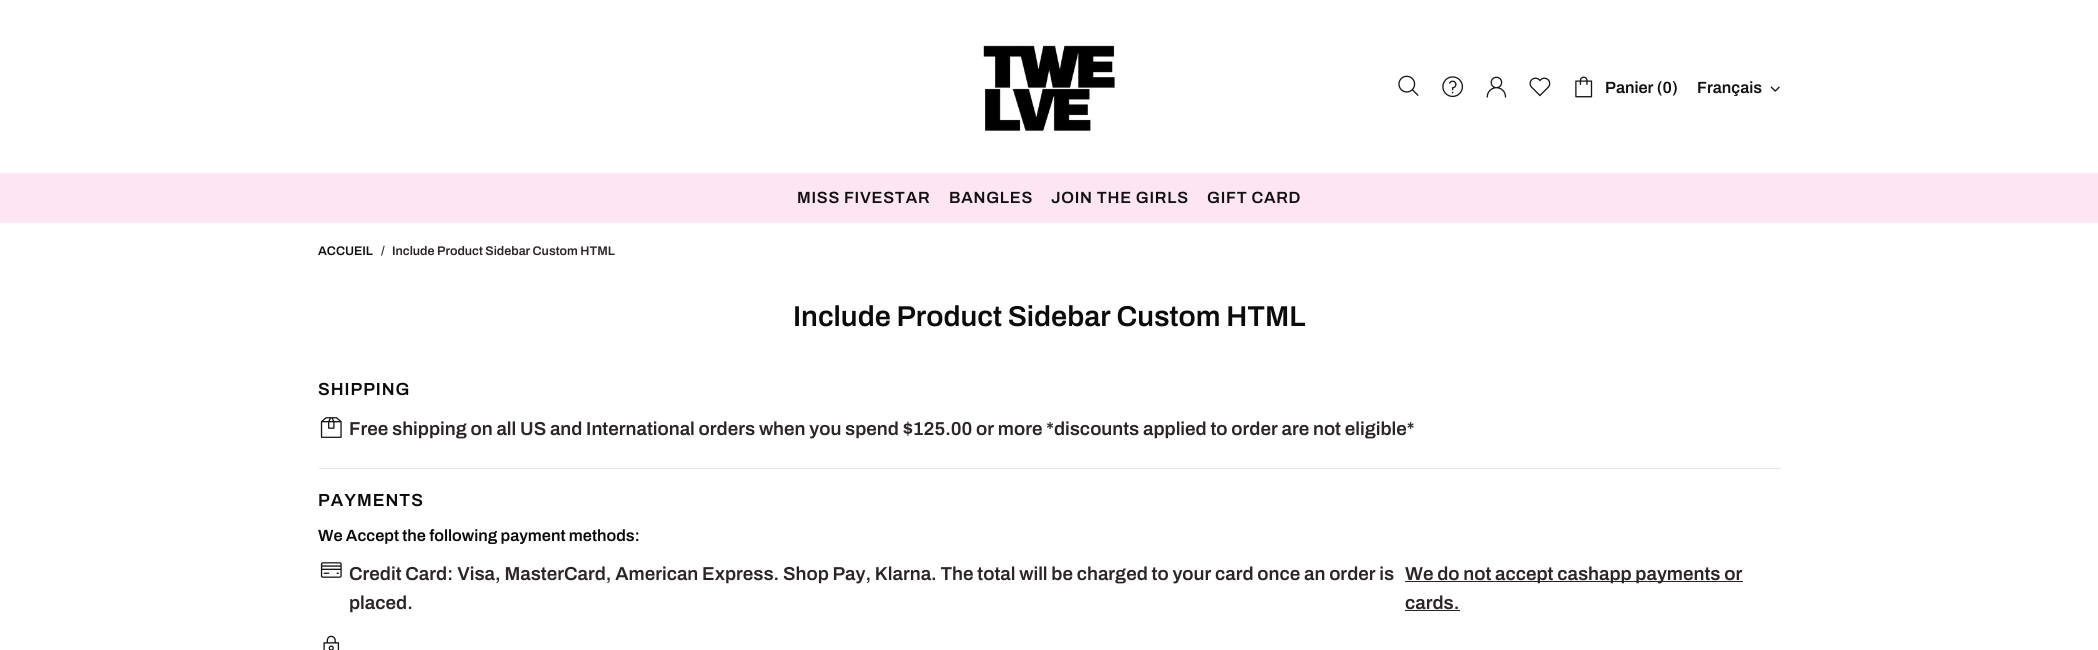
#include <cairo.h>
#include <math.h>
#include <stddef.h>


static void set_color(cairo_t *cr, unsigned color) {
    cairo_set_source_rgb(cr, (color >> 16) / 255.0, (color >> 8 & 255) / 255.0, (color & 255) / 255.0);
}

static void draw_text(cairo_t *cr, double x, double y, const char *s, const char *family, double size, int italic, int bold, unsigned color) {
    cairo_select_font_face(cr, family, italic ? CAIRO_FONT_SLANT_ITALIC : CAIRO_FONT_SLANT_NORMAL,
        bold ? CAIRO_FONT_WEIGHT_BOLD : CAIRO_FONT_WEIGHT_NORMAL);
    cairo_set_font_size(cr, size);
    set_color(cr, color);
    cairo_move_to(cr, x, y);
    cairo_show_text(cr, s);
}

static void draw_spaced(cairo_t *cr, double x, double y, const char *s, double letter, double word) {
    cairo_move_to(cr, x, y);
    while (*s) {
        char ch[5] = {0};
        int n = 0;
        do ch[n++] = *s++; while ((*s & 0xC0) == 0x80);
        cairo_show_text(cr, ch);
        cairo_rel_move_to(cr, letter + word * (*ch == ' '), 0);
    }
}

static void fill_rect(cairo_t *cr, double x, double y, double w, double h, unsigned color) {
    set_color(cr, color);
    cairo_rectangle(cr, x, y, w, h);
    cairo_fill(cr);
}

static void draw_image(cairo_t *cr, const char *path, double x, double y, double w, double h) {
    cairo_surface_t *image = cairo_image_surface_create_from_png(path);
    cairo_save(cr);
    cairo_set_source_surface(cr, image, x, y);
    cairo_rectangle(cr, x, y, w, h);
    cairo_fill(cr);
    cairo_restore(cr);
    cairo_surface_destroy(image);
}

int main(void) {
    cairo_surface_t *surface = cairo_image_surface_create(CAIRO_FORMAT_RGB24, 2098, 650);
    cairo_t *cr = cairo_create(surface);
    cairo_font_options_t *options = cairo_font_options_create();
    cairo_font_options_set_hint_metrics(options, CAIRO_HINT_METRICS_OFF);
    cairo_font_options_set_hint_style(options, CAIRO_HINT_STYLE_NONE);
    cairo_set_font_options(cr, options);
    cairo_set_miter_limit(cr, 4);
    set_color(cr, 0xFFFFFF);
    cairo_paint(cr);
    draw_image(cr, "assets/img1.png", 983, 45, 132, 86);
    draw_image(cr, "assets/img2.png", 1398, 75, 21, 21);
    draw_image(cr, "assets/img3.png", 1442, 76, 22, 22);
    draw_image(cr, "assets/img4.png", 1486, 76, 21, 22);
    draw_image(cr, "assets/img5.png", 1529, 77, 22, 20);
    draw_image(cr, "assets/img6.png", 1575, 76, 18, 22);
    draw_text(cr, 1605, 93, "Panier (0)", "Archivo SemiBold", 16.25, 0, 0, 0x111111);
    draw_text(cr, 1697, 93, "Français", "Archivo SemiBold", 16.25, 0, 0, 0x111111);
    draw_image(cr, "assets/img7.png", 1770, 86, 10, 6);
    fill_rect(cr, 0, 173, 2098, 50, 0xFDE5F4);
    set_color(cr, 0x111111);
    draw_spaced(cr, 797, 203, "MISS FIVESTAR", 0.75, 0);
    draw_spaced(cr, 949, 203, "BANGLES", 0.75, 0);
    draw_spaced(cr, 1051, 203, "JOIN THE GIRLS", 0.75, 0);
    draw_spaced(cr, 1207, 203, "GIFT CARD", 0.75, 0);
    draw_text(cr, 318, 255, "ACCUEIL", "Archivo SemiBold", 12.5, 0, 0, 0x111111);
    draw_text(cr, 381, 255, "/", "Archivo SemiBold", 12.5, 0, 0, 0x2B2529);
    draw_text(cr, 392, 255, "Include Product Sidebar Custom HTML", "Archivo SemiBold", 12.5, 0, 0, 0x2B2529);
    draw_text(cr, 793, 326, "Include Product Sidebar Custom HTML", "Archivo SemiBold", 28.75, 0, 0, 0x0B0B0B);
    cairo_set_font_size(cr, 17.5);
    draw_spaced(cr, 318, 395, "SHIPPING", 1, 0);
    draw_image(cr, "assets/img8.png", 320, 417, 22, 21);
    draw_text(cr, 349, 435, "Free shipping on all US and International orders when you spend $125.00 or more *discounts applied to order are not eligible*", "Archivo SemiBold", 18.75, 0, 0, 0x2B2529);
    fill_rect(cr, 319, 468, 1462, 1, 0xE5E5E5);
    cairo_set_font_size(cr, 17.5);
    set_color(cr, 0x0B0B0B);
    draw_spaced(cr, 318, 506, "PAYMENTS", 1, 0);
    draw_text(cr, 318, 541, "We Accept the following payment methods:", "Archivo SemiBold", 16.25, 0, 0, 0x0B0B0B);
    draw_image(cr, "assets/img9.png", 320, 562, 22, 16);
    draw_text(cr, 349, 580, "Credit Card: Visa, MasterCard, American Express. Shop Pay, Klarna. The total will be charged to your card once an order is", "Archivo SemiBold", 18.75, 0, 0, 0x2B2529);
    fill_rect(cr, 1405, 581, 338, 1, 0x2B2529);
    draw_text(cr, 1405, 580, "We do not accept cashapp payments or", "Archivo SemiBold", 18.75, 0, 0, 0x2B2529);
    draw_text(cr, 1405, 609, "cards.", "Archivo SemiBold", 18.75, 0, 0, 0x2B2529);
    fill_rect(cr, 1405, 610, 55, 1, 0x2B2529);
    draw_text(cr, 349, 609, "placed.", "Archivo SemiBold", 18.75, 0, 0, 0x2B2529);
    draw_image(cr, "assets/img10.png", 323, 635, 17, 15);
    cairo_surface_write_to_png(surface, "output.png");
    cairo_font_options_destroy(options);
    cairo_destroy(cr);
    cairo_surface_destroy(surface);
    return 0;
}
